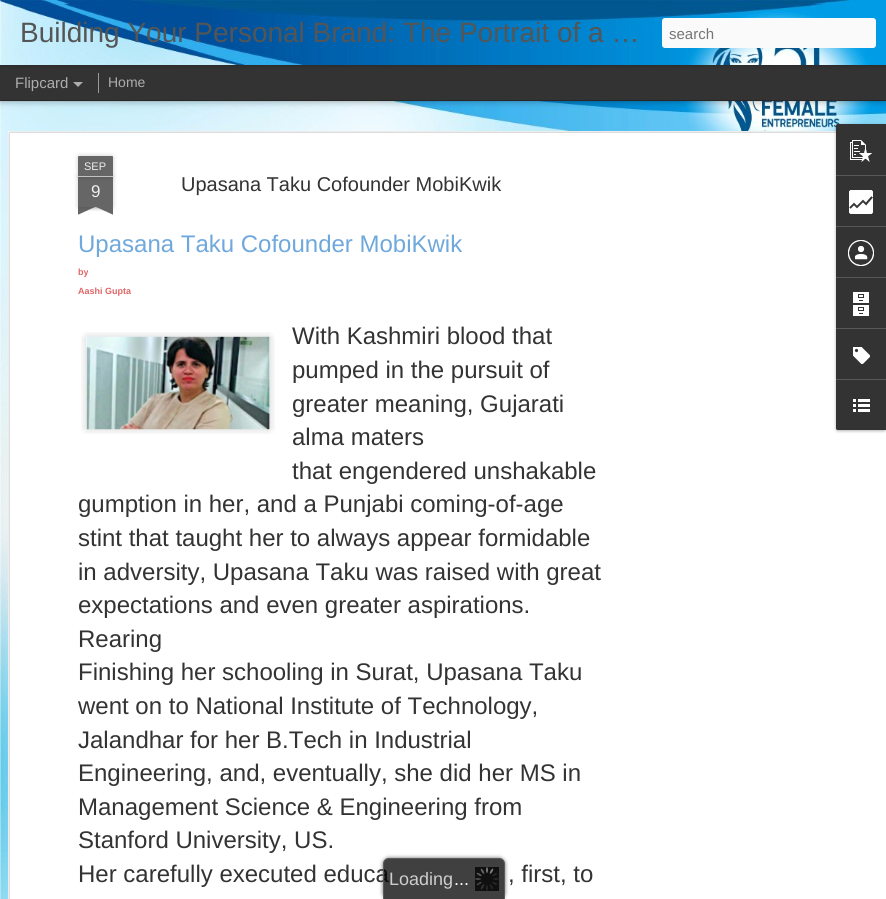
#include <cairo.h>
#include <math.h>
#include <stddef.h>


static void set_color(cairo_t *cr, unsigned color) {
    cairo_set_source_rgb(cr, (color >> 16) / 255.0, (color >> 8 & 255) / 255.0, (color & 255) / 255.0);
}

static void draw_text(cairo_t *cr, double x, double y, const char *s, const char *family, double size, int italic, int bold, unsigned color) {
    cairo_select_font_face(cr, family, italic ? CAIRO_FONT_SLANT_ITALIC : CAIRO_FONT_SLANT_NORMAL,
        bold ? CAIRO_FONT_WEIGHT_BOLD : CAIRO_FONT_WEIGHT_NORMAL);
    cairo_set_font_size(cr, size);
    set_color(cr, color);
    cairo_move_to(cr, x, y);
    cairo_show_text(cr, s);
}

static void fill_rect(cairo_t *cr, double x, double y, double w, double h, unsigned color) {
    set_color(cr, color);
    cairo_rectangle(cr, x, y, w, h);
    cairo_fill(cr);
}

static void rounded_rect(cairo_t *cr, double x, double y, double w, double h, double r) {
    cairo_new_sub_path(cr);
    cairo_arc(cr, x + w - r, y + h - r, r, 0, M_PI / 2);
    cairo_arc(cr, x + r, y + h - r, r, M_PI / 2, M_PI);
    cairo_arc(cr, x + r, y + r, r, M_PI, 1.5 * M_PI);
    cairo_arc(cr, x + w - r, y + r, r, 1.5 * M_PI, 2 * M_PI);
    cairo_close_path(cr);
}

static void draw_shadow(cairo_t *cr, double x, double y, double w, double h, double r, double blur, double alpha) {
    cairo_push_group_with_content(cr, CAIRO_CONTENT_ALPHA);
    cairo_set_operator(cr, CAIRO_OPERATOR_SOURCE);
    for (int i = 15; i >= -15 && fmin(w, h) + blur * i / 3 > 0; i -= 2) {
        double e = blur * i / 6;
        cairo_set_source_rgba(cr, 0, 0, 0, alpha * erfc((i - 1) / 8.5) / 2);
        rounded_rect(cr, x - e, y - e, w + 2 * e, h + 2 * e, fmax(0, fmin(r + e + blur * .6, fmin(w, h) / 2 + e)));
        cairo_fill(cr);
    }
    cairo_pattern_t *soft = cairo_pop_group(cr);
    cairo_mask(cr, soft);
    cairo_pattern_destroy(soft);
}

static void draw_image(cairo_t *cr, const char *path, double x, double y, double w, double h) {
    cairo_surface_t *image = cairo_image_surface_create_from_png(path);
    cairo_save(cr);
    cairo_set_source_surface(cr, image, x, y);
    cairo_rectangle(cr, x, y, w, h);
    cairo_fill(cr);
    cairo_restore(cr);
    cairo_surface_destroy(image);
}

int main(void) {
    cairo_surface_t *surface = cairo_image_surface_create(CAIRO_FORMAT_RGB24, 886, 899);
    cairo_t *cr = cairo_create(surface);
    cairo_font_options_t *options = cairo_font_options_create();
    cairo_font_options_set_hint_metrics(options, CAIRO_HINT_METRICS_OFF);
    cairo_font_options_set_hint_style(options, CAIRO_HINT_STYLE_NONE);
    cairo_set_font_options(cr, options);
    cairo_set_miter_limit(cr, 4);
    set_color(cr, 0x333333);
    cairo_paint(cr);
    draw_image(cr, "assets/img2.png", 0, 101, 886, 798);
    set_color(cr, 0x000000);
    draw_shadow(cr, 0, 65, 886, 35, 0, 4, 0.5);
    fill_rect(cr, 0, 65, 886, 35, 0x333333);
    fill_rect(cr, 98, 73, 1, 20, 0x999999);
    set_color(cr, 0x000000);
    draw_shadow(cr, 0, 0, 886, 65, 0, 2.5, 0.3);
    draw_image(cr, "assets/img1.png", 0, 0, 886, 65);
    draw_text(cr, 20, 42, "Building Your Personal Brand: The Portrait of a …", "Liberation Sans", 28, 0, 0, 0x555555);
    set_color(cr, 0xFAFAFA);
    rounded_rect(cr, 662, 18, 214, 30, 3);
    cairo_fill(cr);
    draw_text(cr, 669, 39, "search", "Liberation Sans", 15, 0, 0, 0x757575);
    draw_text(cr, 15, 88, "Flipcard", "Liberation Sans", 15, 0, 0, 0xADADAD);
    cairo_new_path(cr);
    cairo_move_to(cr, 73, 82);
    cairo_line_to(cr, 83, 82);
    cairo_line_to(cr, 78, 87);
    cairo_close_path(cr);
    cairo_fill(cr);
    draw_text(cr, 108, 87, "Home", "Liberation Sans", 14, 0, 0, 0xADADAD);
    fill_rect(cr, 8, 131, 878, 768, 0xFFFFFF);
    draw_image(cr, "assets/img3.png", 8, 131, 828, 768);
    set_color(cr, 0x000000);
    draw_shadow(cr, 78, 177, 35, 30, 0, 2.5, 0.2);
    fill_rect(cr, 78, 177, 35, 30, 0x666666);
    set_color(cr, 0x000000);
    draw_shadow(cr, 78, 156, 35, 21, 1, 2.5, 0.2);
    set_color(cr, 0x666666);
    cairo_new_path(cr);
    cairo_move_to(cr, 79, 156);
    cairo_line_to(cr, 112, 156);
    cairo_curve_to(cr, 112.5, 156, 113, 156.5, 113, 157);
    cairo_line_to(cr, 113, 177);
    cairo_line_to(cr, 78, 177);
    cairo_line_to(cr, 78, 157);
    cairo_curve_to(cr, 78, 156.5, 78.5, 156, 79, 156);
    cairo_close_path(cr);
    cairo_fill(cr);
    fill_rect(cr, 78, 176, 35, 1, 0xC2C2C2);
    draw_text(cr, 84, 170, "SEP", "Liberation Sans", 11, 0, 0, 0xEEEEEE);
    draw_text(cr, 91, 197, "9", "Liberation Sans", 17, 0, 0, 0xEEEEEE);
    cairo_save(cr);
    cairo_rectangle(cr, 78, 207, 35, 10);
    cairo_clip(cr);
    set_color(cr, 0x000000);
    draw_shadow(cr, 69, 197, 50, 10, 0, 2.5, 0.2);
    cairo_restore(cr);
    cairo_save(cr);
    cairo_rectangle(cr, 78, 207, 35, 10);
    cairo_clip(cr);
    set_color(cr, 0x666666);
    cairo_new_path(cr);
    cairo_move_to(cr, 69, 208);
    cairo_line_to(cr, 115, 187);
    cairo_line_to(cr, 119, 196);
    cairo_line_to(cr, 73, 217);
    cairo_close_path(cr);
    cairo_fill(cr);
    cairo_restore(cr);
    cairo_save(cr);
    cairo_rectangle(cr, 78, 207, 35, 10);
    cairo_clip(cr);
    set_color(cr, 0x000000);
    draw_shadow(cr, 72, 197, 50, 10, 0, 2.5, 0.2);
    cairo_restore(cr);
    cairo_save(cr);
    cairo_rectangle(cr, 78, 207, 35, 10);
    cairo_clip(cr);
    set_color(cr, 0x666666);
    cairo_new_path(cr);
    cairo_move_to(cr, 76, 187);
    cairo_line_to(cr, 122, 208);
    cairo_line_to(cr, 118, 217);
    cairo_line_to(cr, 72, 196);
    cairo_close_path(cr);
    cairo_fill(cr);
    cairo_restore(cr);
    draw_text(cr, 181, 191, "Upasana Taku Cofounder MobiKwik", "Liberation Sans", 20, 0, 0, 0x333333);
    draw_text(cr, 78, 252, "Upasana Taku Cofounder MobiKwik", "Liberation Sans", 24, 0, 0, 0x6FA8DC);
    draw_text(cr, 78, 275, "by", "Liberation Sans", 9, 0, 1, 0xE06666);
    draw_text(cr, 78, 294, "Aashi Gupta", "Liberation Sans", 9, 0, 1, 0xE06666);
    draw_image(cr, "assets/img4.png", 81, 332, 194, 102);
    draw_image(cr, "assets/img5.png", 86, 336, 185, 94);
    draw_text(cr, 292, 344, "With Kashmiri blood that", "Liberation Sans", 24, 0, 0, 0x333333);
    draw_text(cr, 292, 378, "pumped in the pursuit of", "Liberation Sans", 24, 0, 0, 0x333333);
    draw_text(cr, 292, 412, "greater meaning, Gujarati", "Liberation Sans", 24, 0, 0, 0x333333);
    draw_text(cr, 292, 445, "alma maters", "Liberation Sans", 24, 0, 0, 0x333333);
    draw_text(cr, 292, 479, "that engendered unshakable", "Liberation Sans", 24, 0, 0, 0x333333);
    draw_text(cr, 78, 512, "gumption in her, and a Punjabi coming-of-age", "Liberation Sans", 24, 0, 0, 0x333333);
    draw_text(cr, 78, 546, "stint that taught her to always appear formidable", "Liberation Sans", 24, 0, 0, 0x333333);
    draw_text(cr, 78, 580, "in adversity, Upasana Taku was raised with great", "Liberation Sans", 24, 0, 0, 0x333333);
    draw_text(cr, 78, 613, "expectations and even greater aspirations.", "Liberation Sans", 24, 0, 0, 0x333333);
    draw_text(cr, 78, 647, "Rearing", "Liberation Sans", 24, 0, 0, 0x333333);
    draw_text(cr, 78, 680, "Finishing her schooling in Surat, Upasana Taku", "Liberation Sans", 24, 0, 0, 0x333333);
    draw_text(cr, 78, 714, "went on to National Institute of Technology,", "Liberation Sans", 24, 0, 0, 0x333333);
    draw_text(cr, 78, 748, "Jalandhar for her B.Tech in Industrial", "Liberation Sans", 24, 0, 0, 0x333333);
    draw_text(cr, 78, 781, "Engineering, and, eventually, she did her MS in", "Liberation Sans", 24, 0, 0, 0x333333);
    draw_text(cr, 78, 815, "Management Science & Engineering from", "Liberation Sans", 24, 0, 0, 0x333333);
    draw_text(cr, 78, 848, "Stanford University, US.", "Liberation Sans", 24, 0, 0, 0x333333);
    draw_text(cr, 78, 882, "Her carefully executed educa", "Liberation Sans", 24, 0, 0, 0x333333);
    draw_text(cr, 508, 882, ", first, to", "Liberation Sans", 24, 0, 0, 0x333333);
    set_color(cr, 0x000000);
    draw_shadow(cr, 836, 125, 50, 306, 2, 1.5, 0.3);
    set_color(cr, 0x333333);
    cairo_new_path(cr);
    cairo_move_to(cr, 838, 124);
    cairo_line_to(cr, 886, 124);
    cairo_line_to(cr, 886, 430);
    cairo_line_to(cr, 838, 430);
    cairo_curve_to(cr, 837, 430, 836, 429, 836, 428);
    cairo_line_to(cr, 836, 126);
    cairo_curve_to(cr, 836, 125, 837, 124, 838, 124);
    cairo_close_path(cr);
    cairo_fill(cr);
    cairo_new_path(cr);
    cairo_move_to(cr, 838, 124);
    cairo_line_to(cr, 886, 124);
    cairo_line_to(cr, 886, 175);
    cairo_line_to(cr, 836, 175);
    cairo_line_to(cr, 836, 126);
    cairo_curve_to(cr, 836, 125, 837, 124, 838, 124);
    cairo_close_path(cr);
    cairo_fill(cr);
    draw_image(cr, "assets/img6.png", 850, 140, 22, 22);
    fill_rect(cr, 836, 175, 50, 1, 0x585858);
    draw_image(cr, "assets/img7.png", 849, 190, 24, 24);
    fill_rect(cr, 836, 226, 50, 1, 0x585858);
    draw_image(cr, "assets/img8.png", 848, 240, 26, 26);
    fill_rect(cr, 836, 277, 50, 1, 0x585858);
    draw_image(cr, "assets/img9.png", 853, 292, 16, 24);
    fill_rect(cr, 836, 328, 50, 1, 0x585858);
    draw_image(cr, "assets/img10.png", 853, 347, 17, 17);
    set_color(cr, 0x333333);
    cairo_new_path(cr);
    cairo_move_to(cr, 836, 379);
    cairo_line_to(cr, 886, 379);
    cairo_line_to(cr, 886, 430);
    cairo_line_to(cr, 838, 430);
    cairo_curve_to(cr, 837, 430, 836, 429, 836, 428);
    cairo_close_path(cr);
    cairo_fill(cr);
    fill_rect(cr, 836, 379, 50, 1, 0x585858);
    draw_image(cr, "assets/img11.png", 853, 399, 17, 13);
    cairo_save(cr);
    cairo_set_fill_rule(cr, CAIRO_FILL_RULE_EVEN_ODD);
    cairo_new_path(cr);
    cairo_move_to(cr, 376, 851);
    cairo_line_to(cr, 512, 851);
    cairo_line_to(cr, 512, 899);
    cairo_line_to(cr, 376, 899);
    cairo_close_path(cr);
    cairo_move_to(cr, 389, 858);
    cairo_line_to(cr, 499, 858);
    cairo_curve_to(cr, 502.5, 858, 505, 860.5, 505, 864);
    cairo_line_to(cr, 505, 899);
    cairo_line_to(cr, 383, 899);
    cairo_line_to(cr, 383, 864);
    cairo_curve_to(cr, 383, 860.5, 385.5, 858, 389, 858);
    cairo_close_path(cr);
    cairo_clip(cr);
    set_color(cr, 0x333333);
    draw_shadow(cr, 383, 858, 122, 41, 6, 2, 0.75);
    cairo_restore(cr);
    cairo_set_source_rgba(cr, 0, 0, 0, 0.75);
    cairo_new_path(cr);
    cairo_move_to(cr, 389, 858);
    cairo_line_to(cr, 499, 858);
    cairo_curve_to(cr, 502.5, 858, 505, 860.5, 505, 864);
    cairo_line_to(cr, 505, 899);
    cairo_line_to(cr, 383, 899);
    cairo_line_to(cr, 383, 864);
    cairo_curve_to(cr, 383, 860.5, 385.5, 858, 389, 858);
    cairo_close_path(cr);
    cairo_fill(cr);
    cairo_set_source_rgba(cr, 0.4, 0.4, 0.4, 0.75);
    cairo_set_fill_rule(cr, CAIRO_FILL_RULE_EVEN_ODD);
    cairo_new_path(cr);
    cairo_move_to(cr, 389, 858);
    cairo_line_to(cr, 499, 858);
    cairo_curve_to(cr, 502, 858, 505, 861, 505, 864);
    cairo_line_to(cr, 505, 899);
    cairo_line_to(cr, 383, 899);
    cairo_line_to(cr, 383, 864);
    cairo_curve_to(cr, 383, 861, 386, 858, 389, 858);
    cairo_close_path(cr);
    cairo_move_to(cr, 389, 859);
    cairo_line_to(cr, 499, 859);
    cairo_curve_to(cr, 502, 859, 504, 861, 504, 864);
    cairo_line_to(cr, 504, 899);
    cairo_line_to(cr, 384, 899);
    cairo_line_to(cr, 384, 864);
    cairo_curve_to(cr, 384, 861, 386, 859, 389, 859);
    cairo_close_path(cr);
    cairo_fill(cr);
    draw_image(cr, "assets/img12.png", 475, 867, 24, 24);
    draw_text(cr, 389, 885, "Loading", "Liberation Sans", 18, 0, 0, 0xCDCDCD);
    draw_text(cr, 454, 885, "...", "Liberation Sans", 18, 0, 0, 0xFFFFFF);
    cairo_surface_write_to_png(surface, "output.png");
    cairo_font_options_destroy(options);
    cairo_destroy(cr);
    cairo_surface_destroy(surface);
    return 0;
}
